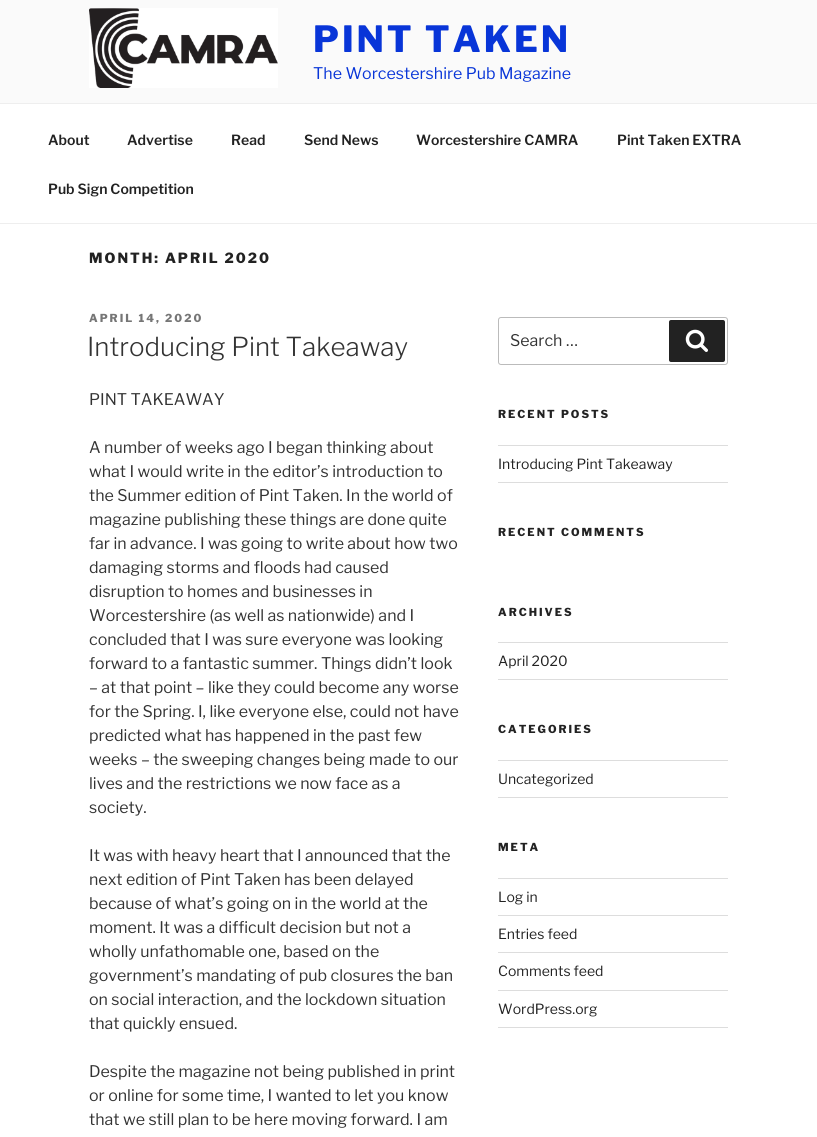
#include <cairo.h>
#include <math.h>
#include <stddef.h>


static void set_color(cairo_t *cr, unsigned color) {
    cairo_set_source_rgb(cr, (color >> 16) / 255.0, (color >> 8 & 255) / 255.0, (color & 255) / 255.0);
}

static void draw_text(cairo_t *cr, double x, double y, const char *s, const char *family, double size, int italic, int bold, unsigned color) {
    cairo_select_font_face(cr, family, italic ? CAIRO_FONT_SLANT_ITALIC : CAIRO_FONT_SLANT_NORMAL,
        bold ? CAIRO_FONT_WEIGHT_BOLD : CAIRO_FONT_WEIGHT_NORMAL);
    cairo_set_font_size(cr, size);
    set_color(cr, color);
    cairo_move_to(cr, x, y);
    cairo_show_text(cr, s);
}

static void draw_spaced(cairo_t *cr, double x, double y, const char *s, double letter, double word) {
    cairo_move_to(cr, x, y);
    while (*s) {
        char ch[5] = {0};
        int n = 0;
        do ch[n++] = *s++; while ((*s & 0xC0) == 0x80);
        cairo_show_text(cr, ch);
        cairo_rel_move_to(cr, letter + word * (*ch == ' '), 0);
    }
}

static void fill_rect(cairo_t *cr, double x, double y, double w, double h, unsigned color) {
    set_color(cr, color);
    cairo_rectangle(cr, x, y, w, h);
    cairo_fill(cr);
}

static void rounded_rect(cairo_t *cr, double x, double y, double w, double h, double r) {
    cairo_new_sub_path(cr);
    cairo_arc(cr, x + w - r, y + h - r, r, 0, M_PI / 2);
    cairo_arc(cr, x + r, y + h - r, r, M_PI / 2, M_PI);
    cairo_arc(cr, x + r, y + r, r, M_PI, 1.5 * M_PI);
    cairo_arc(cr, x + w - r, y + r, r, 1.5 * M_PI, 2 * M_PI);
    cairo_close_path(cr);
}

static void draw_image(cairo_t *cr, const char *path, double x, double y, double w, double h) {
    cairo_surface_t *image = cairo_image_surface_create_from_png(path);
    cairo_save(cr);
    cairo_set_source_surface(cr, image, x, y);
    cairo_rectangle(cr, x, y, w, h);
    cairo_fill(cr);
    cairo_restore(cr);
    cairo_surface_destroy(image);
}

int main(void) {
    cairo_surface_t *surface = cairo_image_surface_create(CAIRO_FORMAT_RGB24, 817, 1137);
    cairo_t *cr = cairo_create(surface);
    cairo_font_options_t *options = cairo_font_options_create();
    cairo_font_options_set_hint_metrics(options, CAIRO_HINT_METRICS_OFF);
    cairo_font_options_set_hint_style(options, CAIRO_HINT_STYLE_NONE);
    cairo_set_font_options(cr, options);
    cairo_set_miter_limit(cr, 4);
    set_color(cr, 0xFAFAFA);
    cairo_paint(cr);
    draw_image(cr, "assets/img1.png", 89, 8, 189, 80);
    cairo_select_font_face(cr, "Libre Franklin Thin", CAIRO_FONT_SLANT_NORMAL, CAIRO_FONT_WEIGHT_NORMAL);
    cairo_set_font_size(cr, 36);
    set_color(cr, 0x0835D8);
    draw_spaced(cr, 313, 52, "PINT TAKEN", 2.9, 0);
    draw_text(cr, 313, 79, "The Worcestershire Pub Magazine", "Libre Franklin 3 Thin", 16, 0, 0, 0x0835D8);
    fill_rect(cr, 0, 104, 817, 119, 0xFFFFFF);
    fill_rect(cr, 0, 103, 817, 1, 0xEEEEEE);
    fill_rect(cr, 0, 223, 817, 1, 0xEEEEEE);
    draw_text(cr, 48, 145, "About", "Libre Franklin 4 Thin", 14, 0, 0, 0x222222);
    draw_text(cr, 127, 145, "Advertise", "Libre Franklin 4 Thin", 14, 0, 0, 0x222222);
    draw_text(cr, 231, 145, "Read", "Libre Franklin 4 Thin", 14, 0, 0, 0x222222);
    draw_text(cr, 304, 145, "Send News", "Libre Franklin 4 Thin", 14, 0, 0, 0x222222);
    draw_text(cr, 416, 145, "Worcestershire CAMRA", "Libre Franklin 4 Thin", 14, 0, 0, 0x222222);
    draw_text(cr, 617, 145, "Pint Taken EXTRA", "Libre Franklin 4 Thin", 14, 0, 0, 0x222222);
    draw_text(cr, 48, 194, "Pub Sign Competition", "Libre Franklin 4 Thin", 14, 0, 0, 0x222222);
    fill_rect(cr, 0, 224, 817, 913, 0xFFFFFF);
    cairo_select_font_face(cr, "Libre Franklin Thin", CAIRO_FONT_SLANT_NORMAL, CAIRO_FONT_WEIGHT_NORMAL);
    set_color(cr, 0x222222);
    draw_spaced(cr, 89, 263, "MONTH: APRIL 2020", 2, 0);
    cairo_set_font_size(cr, 11);
    set_color(cr, 0x767676);
    draw_spaced(cr, 89, 322, "APRIL 14, 2020", 2, 0);
    draw_text(cr, 87, 356, "Introducing Pint Takeaway", "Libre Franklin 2 Thin", 26, 0, 0, 0x333333);
    draw_text(cr, 89, 405, "PINT TAKEAWAY", "Libre Franklin 3 Thin", 16, 0, 0, 0x333333);
    draw_text(cr, 89, 453, "A number of weeks ago I began thinking about", "Libre Franklin 3 Thin", 16, 0, 0, 0x333333);
    draw_text(cr, 89, 477, "what I would write in the editor’s introduction to", "Libre Franklin 3 Thin", 16, 0, 0, 0x333333);
    draw_text(cr, 89, 501, "the Summer edition of Pint Taken. In the world of", "Libre Franklin 3 Thin", 16, 0, 0, 0x333333);
    draw_text(cr, 89, 525, "magazine publishing these things are done quite", "Libre Franklin 3 Thin", 16, 0, 0, 0x333333);
    draw_text(cr, 89, 549, "far in advance. I was going to write about how two", "Libre Franklin 3 Thin", 16, 0, 0, 0x333333);
    draw_text(cr, 89, 573, "damaging storms and floods had caused", "Libre Franklin 3 Thin", 16, 0, 0, 0x333333);
    draw_text(cr, 89, 597, "disruption to homes and businesses in", "Libre Franklin 3 Thin", 16, 0, 0, 0x333333);
    draw_text(cr, 89, 621, "Worcestershire (as well as nationwide) and I", "Libre Franklin 3 Thin", 16, 0, 0, 0x333333);
    draw_text(cr, 89, 645, "concluded that I was sure everyone was looking", "Libre Franklin 3 Thin", 16, 0, 0, 0x333333);
    draw_text(cr, 89, 669, "forward to a fantastic summer. Things didn’t look", "Libre Franklin 3 Thin", 16, 0, 0, 0x333333);
    draw_text(cr, 89, 693, "– at that point – like they could become any worse", "Libre Franklin 3 Thin", 16, 0, 0, 0x333333);
    draw_text(cr, 89, 717, "for the Spring. I, like everyone else, could not have", "Libre Franklin 3 Thin", 16, 0, 0, 0x333333);
    draw_text(cr, 89, 741, "predicted what has happened in the past few", "Libre Franklin 3 Thin", 16, 0, 0, 0x333333);
    draw_text(cr, 89, 765, "weeks – the sweeping changes being made to our", "Libre Franklin 3 Thin", 16, 0, 0, 0x333333);
    draw_text(cr, 89, 789, "lives and the restrictions we now face as a", "Libre Franklin 3 Thin", 16, 0, 0, 0x333333);
    draw_text(cr, 89, 813, "society.", "Libre Franklin 3 Thin", 16, 0, 0, 0x333333);
    draw_text(cr, 89, 861, "It was with heavy heart that I announced that the", "Libre Franklin 3 Thin", 16, 0, 0, 0x333333);
    draw_text(cr, 89, 885, "next edition of Pint Taken has been delayed", "Libre Franklin 3 Thin", 16, 0, 0, 0x333333);
    draw_text(cr, 89, 909, "because of what’s going on in the world at the", "Libre Franklin 3 Thin", 16, 0, 0, 0x333333);
    draw_text(cr, 89, 933, "moment. It was a difficult decision but not a", "Libre Franklin 3 Thin", 16, 0, 0, 0x333333);
    draw_text(cr, 89, 957, "wholly unfathomable one, based on the", "Libre Franklin 3 Thin", 16, 0, 0, 0x333333);
    draw_text(cr, 89, 981, "government’s mandating of pub closures the ban", "Libre Franklin 3 Thin", 16, 0, 0, 0x333333);
    draw_text(cr, 89, 1005, "on social interaction, and the lockdown situation", "Libre Franklin 3 Thin", 16, 0, 0, 0x333333);
    draw_text(cr, 89, 1029, "that quickly ensued.", "Libre Franklin 3 Thin", 16, 0, 0, 0x333333);
    draw_text(cr, 89, 1077, "Despite the magazine not being published in print", "Libre Franklin 3 Thin", 16, 0, 0, 0x333333);
    draw_text(cr, 89, 1101, "or online for some time, I wanted to let you know", "Libre Franklin 3 Thin", 16, 0, 0, 0x333333);
    draw_text(cr, 89, 1125, "that we still plan to be here moving forward. I am", "Libre Franklin 3 Thin", 16, 0, 0, 0x333333);
    rounded_rect(cr, 498.5, 317.5, 229, 47, 2.5);
    set_color(cr, 0xBBBBBB);
    cairo_set_line_width(cr, 1);
    cairo_stroke(cr);
    draw_text(cr, 510, 346, "Search …", "Libre Franklin 3 Thin", 16, 0, 0, 0x333333);
    set_color(cr, 0x222222);
    rounded_rect(cr, 669, 320, 56, 42, 2);
    cairo_fill(cr);
    draw_image(cr, "assets/img2.png", 685, 329, 23, 23);
    cairo_select_font_face(cr, "Libre Franklin Thin", CAIRO_FONT_SLANT_NORMAL, CAIRO_FONT_WEIGHT_NORMAL);
    cairo_set_font_size(cr, 11);
    draw_spaced(cr, 498, 418, "RECENT POSTS", 2, 0);
    fill_rect(cr, 498, 445, 230, 1, 0xDDDDDD);
    fill_rect(cr, 498, 482, 230, 1, 0xDDDDDD);
    draw_text(cr, 498, 469, "Introducing Pint Takeaway", "Libre Franklin 3 Thin", 14, 0, 0, 0x222222);
    cairo_select_font_face(cr, "Libre Franklin Thin", CAIRO_FONT_SLANT_NORMAL, CAIRO_FONT_WEIGHT_NORMAL);
    cairo_set_font_size(cr, 11);
    draw_spaced(cr, 498, 536, "RECENT COMMENTS", 2, 0);
    draw_spaced(cr, 498, 616, "ARCHIVES", 2, 0);
    fill_rect(cr, 498, 642, 230, 1, 0xDDDDDD);
    fill_rect(cr, 498, 679, 230, 1, 0xDDDDDD);
    draw_text(cr, 498, 666, "April 2020", "Libre Franklin 3 Thin", 14, 0, 0, 0x222222);
    cairo_select_font_face(cr, "Libre Franklin Thin", CAIRO_FONT_SLANT_NORMAL, CAIRO_FONT_WEIGHT_NORMAL);
    cairo_set_font_size(cr, 11);
    draw_spaced(cr, 498, 733, "CATEGORIES", 2, 0);
    fill_rect(cr, 498, 760, 230, 1, 0xDDDDDD);
    fill_rect(cr, 498, 797, 230, 1, 0xDDDDDD);
    draw_text(cr, 498, 784, "Uncategorized", "Libre Franklin 3 Thin", 14, 0, 0, 0x222222);
    cairo_select_font_face(cr, "Libre Franklin Thin", CAIRO_FONT_SLANT_NORMAL, CAIRO_FONT_WEIGHT_NORMAL);
    cairo_set_font_size(cr, 11);
    draw_spaced(cr, 498, 851, "META", 2, 0);
    fill_rect(cr, 498, 878, 230, 1, 0xDDDDDD);
    fill_rect(cr, 498, 915, 230, 1, 0xDDDDDD);
    draw_text(cr, 498, 902, "Log in", "Libre Franklin 3 Thin", 14, 0, 0, 0x222222);
    fill_rect(cr, 498, 952, 230, 1, 0xDDDDDD);
    draw_text(cr, 498, 939, "Entries feed", "Libre Franklin 3 Thin", 14, 0, 0, 0x222222);
    fill_rect(cr, 498, 990, 230, 1, 0xDDDDDD);
    draw_text(cr, 498, 976, "Comments feed", "Libre Franklin 3 Thin", 14, 0, 0, 0x222222);
    fill_rect(cr, 498, 1027, 230, 1, 0xDDDDDD);
    draw_text(cr, 498, 1014, "WordPress.org", "Libre Franklin 3 Thin", 14, 0, 0, 0x222222);
    cairo_surface_write_to_png(surface, "output.png");
    cairo_font_options_destroy(options);
    cairo_destroy(cr);
    cairo_surface_destroy(surface);
    return 0;
}
